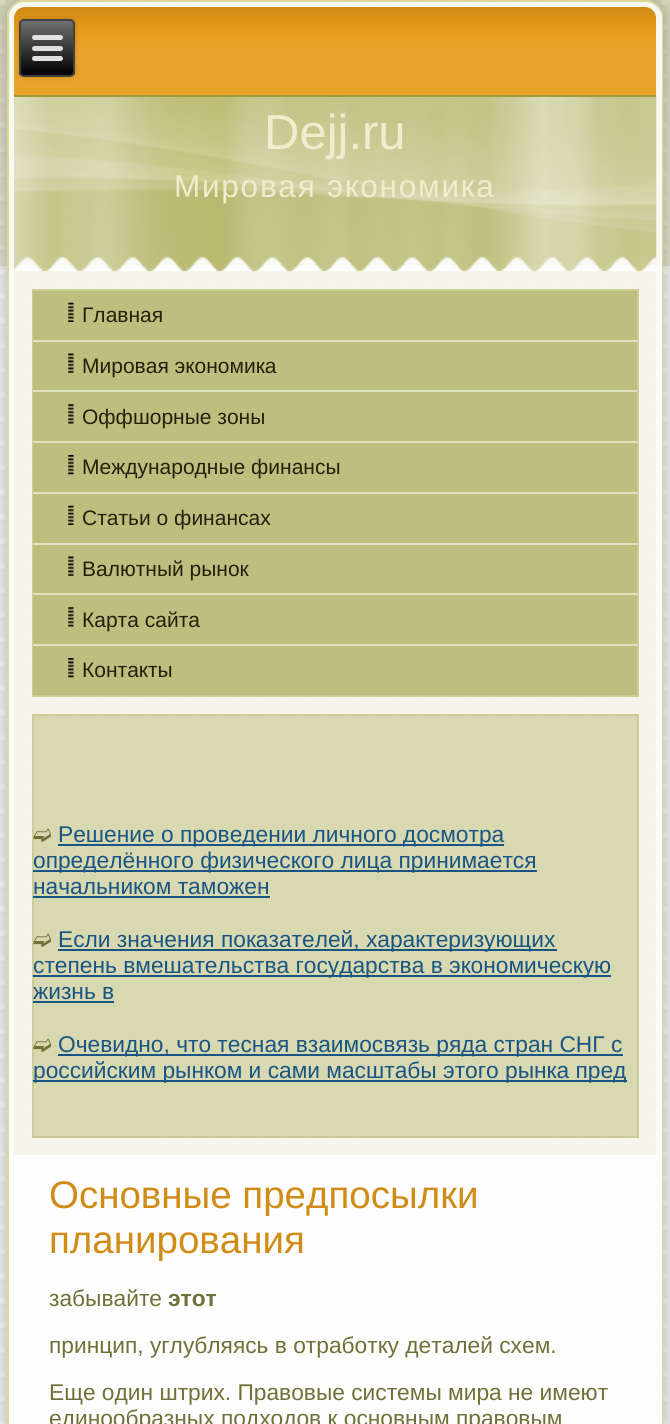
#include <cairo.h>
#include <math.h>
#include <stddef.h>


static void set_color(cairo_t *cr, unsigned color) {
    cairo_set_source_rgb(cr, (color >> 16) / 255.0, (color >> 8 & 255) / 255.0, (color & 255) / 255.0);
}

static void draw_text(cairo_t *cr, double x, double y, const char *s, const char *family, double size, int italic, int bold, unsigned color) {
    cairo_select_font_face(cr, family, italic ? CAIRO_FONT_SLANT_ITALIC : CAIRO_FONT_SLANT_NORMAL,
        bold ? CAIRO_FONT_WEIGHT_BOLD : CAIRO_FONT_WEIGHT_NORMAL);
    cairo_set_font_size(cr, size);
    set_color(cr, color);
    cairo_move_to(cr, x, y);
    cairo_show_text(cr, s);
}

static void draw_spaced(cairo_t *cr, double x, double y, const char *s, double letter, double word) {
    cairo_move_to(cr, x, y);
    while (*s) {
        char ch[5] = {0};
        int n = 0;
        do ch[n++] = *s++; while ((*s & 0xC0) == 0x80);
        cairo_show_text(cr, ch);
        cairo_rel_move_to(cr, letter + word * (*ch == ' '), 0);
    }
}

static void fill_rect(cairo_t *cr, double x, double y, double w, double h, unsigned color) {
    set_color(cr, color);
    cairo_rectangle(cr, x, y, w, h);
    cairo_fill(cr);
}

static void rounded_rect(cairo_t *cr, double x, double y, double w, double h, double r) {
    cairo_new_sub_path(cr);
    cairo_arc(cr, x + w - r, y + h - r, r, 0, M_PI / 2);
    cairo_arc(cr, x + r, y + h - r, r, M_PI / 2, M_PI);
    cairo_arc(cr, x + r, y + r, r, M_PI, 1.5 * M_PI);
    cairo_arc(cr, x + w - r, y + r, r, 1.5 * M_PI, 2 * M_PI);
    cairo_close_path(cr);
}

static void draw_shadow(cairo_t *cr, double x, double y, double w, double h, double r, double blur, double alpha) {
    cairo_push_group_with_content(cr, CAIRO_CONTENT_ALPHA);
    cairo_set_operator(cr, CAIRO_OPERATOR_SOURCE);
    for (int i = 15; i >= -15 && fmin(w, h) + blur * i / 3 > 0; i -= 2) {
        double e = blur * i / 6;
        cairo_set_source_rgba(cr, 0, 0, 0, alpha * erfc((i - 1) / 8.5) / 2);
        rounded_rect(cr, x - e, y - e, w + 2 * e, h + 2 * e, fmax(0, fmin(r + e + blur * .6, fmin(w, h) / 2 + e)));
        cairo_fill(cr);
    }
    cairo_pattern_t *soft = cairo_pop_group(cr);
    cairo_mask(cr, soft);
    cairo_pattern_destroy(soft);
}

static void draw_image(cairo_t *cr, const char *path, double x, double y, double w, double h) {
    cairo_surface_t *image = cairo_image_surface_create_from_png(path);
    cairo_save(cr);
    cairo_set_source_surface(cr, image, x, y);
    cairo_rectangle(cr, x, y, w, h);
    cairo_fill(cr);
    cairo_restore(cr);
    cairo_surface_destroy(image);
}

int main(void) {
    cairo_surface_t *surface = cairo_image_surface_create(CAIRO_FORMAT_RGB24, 670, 1424);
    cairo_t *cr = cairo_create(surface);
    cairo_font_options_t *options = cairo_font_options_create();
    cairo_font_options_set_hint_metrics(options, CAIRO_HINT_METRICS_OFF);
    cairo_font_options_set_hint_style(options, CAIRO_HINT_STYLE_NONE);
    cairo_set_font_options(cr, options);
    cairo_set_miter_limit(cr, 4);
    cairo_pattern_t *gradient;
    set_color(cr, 0xFFFFFF);
    cairo_paint(cr);
    draw_image(cr, "assets/img1.png", 0, 0, 670, 1424);
    cairo_save(cr);
    cairo_set_fill_rule(cr, CAIRO_FILL_RULE_EVEN_ODD);
    cairo_new_path(cr);
    cairo_move_to(cr, 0, 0);
    cairo_line_to(cr, 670, 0);
    cairo_line_to(cr, 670, 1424);
    cairo_line_to(cr, 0, 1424);
    cairo_close_path(cr);
    cairo_move_to(cr, 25, 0);
    cairo_line_to(cr, 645, 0);
    cairo_curve_to(cr, 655, 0, 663, 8, 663, 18);
    cairo_line_to(cr, 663, 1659);
    cairo_line_to(cr, 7, 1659);
    cairo_line_to(cr, 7, 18);
    cairo_curve_to(cr, 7, 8, 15, 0, 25, 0);
    cairo_close_path(cr);
    cairo_clip(cr);
    set_color(cr, 0x000000);
    draw_shadow(cr, 0, -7, 670, 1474, 25, 6, 0.16);
    cairo_restore(cr);
    cairo_set_source_rgba(cr, 1, 1, 1, 0.8);
    cairo_new_path(cr);
    cairo_move_to(cr, 25, 0);
    cairo_line_to(cr, 645, 0);
    cairo_curve_to(cr, 655, 0, 663, 8, 663, 18);
    cairo_line_to(cr, 663, 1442);
    cairo_line_to(cr, 7, 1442);
    cairo_line_to(cr, 7, 18);
    cairo_curve_to(cr, 7, 8, 15, 0, 25, 0);
    cairo_close_path(cr);
    cairo_fill(cr);
    cairo_set_source_rgba(cr, 0.82, 0.808, 0.482, 0.8);
    cairo_set_fill_rule(cr, CAIRO_FILL_RULE_EVEN_ODD);
    cairo_new_path(cr);
    cairo_move_to(cr, 24, 0);
    cairo_line_to(cr, 646, 0);
    cairo_curve_to(cr, 655, 0, 663, 8, 663, 18);
    cairo_line_to(cr, 663, 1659);
    cairo_line_to(cr, 7, 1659);
    cairo_line_to(cr, 7, 18);
    cairo_curve_to(cr, 7, 8, 15, 0, 24, 0);
    cairo_close_path(cr);
    cairo_move_to(cr, 24, 2);
    cairo_line_to(cr, 646, 2);
    cairo_curve_to(cr, 654, 2, 662, 9, 662, 18);
    cairo_line_to(cr, 662, 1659);
    cairo_line_to(cr, 9, 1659);
    cairo_line_to(cr, 9, 18);
    cairo_curve_to(cr, 9, 9, 16, 2, 24, 2);
    cairo_close_path(cr);
    cairo_fill(cr);
    gradient = cairo_pattern_create_linear(335, 7, 335, 96);
    cairo_pattern_add_color_stop_rgba(gradient, 0, 0.816, 0.549, 0.086, 1);
    cairo_pattern_add_color_stop_rgba(gradient, 0.25, 0.906, 0.608, 0.094, 1);
    cairo_pattern_add_color_stop_rgba(gradient, 0.4, 0.91, 0.631, 0.149, 1);
    cairo_pattern_add_color_stop_rgba(gradient, 0.5, 0.914, 0.639, 0.169, 1);
    cairo_pattern_add_color_stop_rgba(gradient, 1, 0.914, 0.639, 0.169, 1);
    cairo_set_source(cr, gradient);
    cairo_pattern_destroy(gradient);
    cairo_new_path(cr);
    cairo_move_to(cr, 25, 7);
    cairo_line_to(cr, 645, 7);
    cairo_curve_to(cr, 651, 7, 656, 12, 656, 18);
    cairo_line_to(cr, 656, 96);
    cairo_line_to(cr, 14, 96);
    cairo_line_to(cr, 14, 18);
    cairo_curve_to(cr, 14, 12, 19, 7, 25, 7);
    cairo_close_path(cr);
    cairo_fill(cr);
    draw_image(cr, "assets/img2.png", 14, 96, 643, 176);
    fill_rect(cr, 14, 95, 642, 2, 0x9F9B38);
    set_color(cr, 0x000000);
    draw_shadow(cr, 19, 19, 56, 58, 5, 2.5, 0.2);
    cairo_save(cr);
    cairo_set_fill_rule(cr, CAIRO_FILL_RULE_WINDING);
    rounded_rect(cr, 19, 19, 56, 58, 5);
    cairo_clip(cr);
    gradient = cairo_pattern_create_linear(47, 21, 47, 75);
    cairo_pattern_add_color_stop_rgba(gradient, 0, 0.439, 0.439, 0.439, 1);
    cairo_pattern_add_color_stop_rgba(gradient, 1, 0, 0, 0, 1);
    cairo_set_source(cr, gradient);
    cairo_pattern_destroy(gradient);
    cairo_rectangle(cr, 19, 21, 56, 54);
    cairo_fill(cr);
    cairo_restore(cr);
    rounded_rect(cr, 20, 20, 54, 56, 4);
    set_color(cr, 0x404040);
    cairo_stroke(cr);
    set_color(cr, 0xE0E0E0);
    rounded_rect(cr, 32, 35, 31, 5, 2.5);
    cairo_fill(cr);
    rounded_rect(cr, 32, 46, 31, 5, 2.5);
    cairo_fill(cr);
    rounded_rect(cr, 32, 56, 31, 5, 2.5);
    cairo_fill(cr);
    draw_text(cr, 264, 149, "Dejj.ru", "Liberation Sans", 49, 0, 0, 0xEEEDCE);
    cairo_set_font_size(cr, 31.5);
    draw_spaced(cr, 174, 197, "Мировая экономика", 1.75, 0);
    cairo_set_source_rgba(cr, 0.941, 0.941, 0.878, 0.6);
    cairo_rectangle(cr, 14, 271, 642, 884);
    cairo_fill(cr);
    cairo_rectangle(cr, 33, 290, 605, 406);
    set_color(cr, 0xCCCC99);
    cairo_stroke(cr);
    fill_rect(cr, 33, 291, 604, 49, 0xBEBE7E);
    draw_image(cr, "assets/img3.png", 68, 302, 6, 20);
    draw_text(cr, 82, 322, "Главная", "Liberation Sans", 21, 0, 0, 0x22210C);
    fill_rect(cr, 33, 340, 604, 2, 0xE0E0C2);
    fill_rect(cr, 33, 342, 604, 48, 0xBEBE7E);
    draw_image(cr, "assets/img4.png", 68, 353, 6, 20);
    draw_text(cr, 82, 373, "Мировая экономика", "Liberation Sans", 21, 0, 0, 0x22210C);
    fill_rect(cr, 33, 390, 604, 2, 0xE0E0C2);
    fill_rect(cr, 33, 392, 604, 49, 0xBEBE7E);
    draw_image(cr, "assets/img5.png", 68, 404, 6, 20);
    draw_text(cr, 82, 424, "Оффшорные зоны", "Liberation Sans", 21, 0, 0, 0x22210C);
    fill_rect(cr, 33, 441, 604, 2, 0xE0E0C2);
    fill_rect(cr, 33, 443, 604, 49, 0xBEBE7E);
    draw_image(cr, "assets/img6.png", 68, 455, 6, 20);
    draw_text(cr, 82, 474, "Международные финансы", "Liberation Sans", 21, 0, 0, 0x22210C);
    fill_rect(cr, 33, 492, 604, 2, 0xE0E0C2);
    fill_rect(cr, 33, 494, 604, 49, 0xBEBE7E);
    draw_image(cr, "assets/img3.png", 68, 505, 6, 20);
    draw_text(cr, 82, 525, "Статьи о финансах", "Liberation Sans", 21, 0, 0, 0x22210C);
    fill_rect(cr, 33, 543, 604, 2, 0xE0E0C2);
    fill_rect(cr, 33, 545, 604, 48, 0xBEBE7E);
    draw_image(cr, "assets/img4.png", 68, 556, 6, 20);
    draw_text(cr, 82, 576, "Валютный рынок", "Liberation Sans", 21, 0, 0, 0x22210C);
    fill_rect(cr, 33, 593, 604, 2, 0xE0E0C2);
    fill_rect(cr, 33, 595, 604, 49, 0xBEBE7E);
    draw_image(cr, "assets/img5.png", 68, 607, 6, 20);
    draw_text(cr, 82, 627, "Карта сайта", "Liberation Sans", 21, 0, 0, 0x22210C);
    fill_rect(cr, 33, 644, 604, 2, 0xE0E0C2);
    fill_rect(cr, 33, 646, 604, 49, 0xBEBE7E);
    draw_image(cr, "assets/img6.png", 68, 658, 6, 20);
    draw_text(cr, 82, 677, "Контакты", "Liberation Sans", 21, 0, 0, 0x22210C);
    set_color(cr, 0xD8D8B1);
    cairo_rectangle(cr, 33, 715, 605, 422);
    cairo_fill_preserve(cr);
    set_color(cr, 0xCCCC99);
    cairo_stroke(cr);
    draw_text(cr, 33, 842, "➫", "DejaVu Sans", 22.75, 0, 0, 0x707038);
    fill_rect(cr, 58, 844, 446, 2, 0x185584);
    draw_text(cr, 58, 842, "Решение о проведении личного досмотра", "Liberation Sans", 22.75, 0, 0, 0x185584);
    fill_rect(cr, 33, 870, 504, 2, 0x185584);
    draw_text(cr, 33, 868, "определённого физического лица принимается", "Liberation Sans", 22.75, 0, 0, 0x185584);
    draw_text(cr, 33, 894, "начальником таможен", "Liberation Sans", 22.75, 0, 0, 0x185584);
    fill_rect(cr, 33, 896, 237, 2, 0x185584);
    draw_text(cr, 33, 947, "➫", "DejaVu Sans", 22.75, 0, 0, 0x707038);
    fill_rect(cr, 58, 949, 499, 2, 0x185584);
    draw_text(cr, 58, 947, "Если значения показателей, характеризующих", "Liberation Sans", 22.75, 0, 0, 0x185584);
    fill_rect(cr, 33, 975, 578, 2, 0x185584);
    draw_text(cr, 33, 973, "степень вмешательства государства в экономическую", "Liberation Sans", 22.75, 0, 0, 0x185584);
    draw_text(cr, 33, 999, "жизнь в", "Liberation Sans", 22.75, 0, 0, 0x185584);
    fill_rect(cr, 33, 1001, 81, 2, 0x185584);
    draw_text(cr, 33, 1052, "➫", "DejaVu Sans", 22.75, 0, 0, 0x707038);
    fill_rect(cr, 58, 1054, 565, 2, 0x185584);
    draw_text(cr, 58, 1052, "Очевидно, что тесная взаимосвязь ряда стран СНГ с", "Liberation Sans", 22.75, 0, 0, 0x185584);
    fill_rect(cr, 33, 1080, 594, 2, 0x185584);
    draw_text(cr, 33, 1078, "российским рынком и сами масштабы этого рынка пред", "Liberation Sans", 22.75, 0, 0, 0x185584);
    draw_text(cr, 49, 1208, "Основные предпосылки", "Liberation Sans", 38.5, 0, 0, 0xD08C16);
    draw_text(cr, 49, 1253, "планирования", "Liberation Sans", 38.5, 0, 0, 0xD08C16);
    draw_text(cr, 49, 1306, "забывайте", "Liberation Sans", 22.75, 0, 0, 0x707038);
    draw_text(cr, 168, 1306, "этот", "Liberation Sans", 22.75, 0, 1, 0x707038);
    draw_text(cr, 49, 1353, "принцип, углубляясь в отработку деталей схем.", "Liberation Sans", 22.75, 0, 0, 0x707038);
    draw_text(cr, 49, 1400, "Еще один штрих. Правовые системы мира не имеют", "Liberation Sans", 22.75, 0, 0, 0x707038);
    draw_text(cr, 49, 1426, "единообразных подходов к основным правовым", "Liberation Sans", 22.75, 0, 0, 0x707038);
    cairo_surface_write_to_png(surface, "output.png");
    cairo_font_options_destroy(options);
    cairo_destroy(cr);
    cairo_surface_destroy(surface);
    return 0;
}
